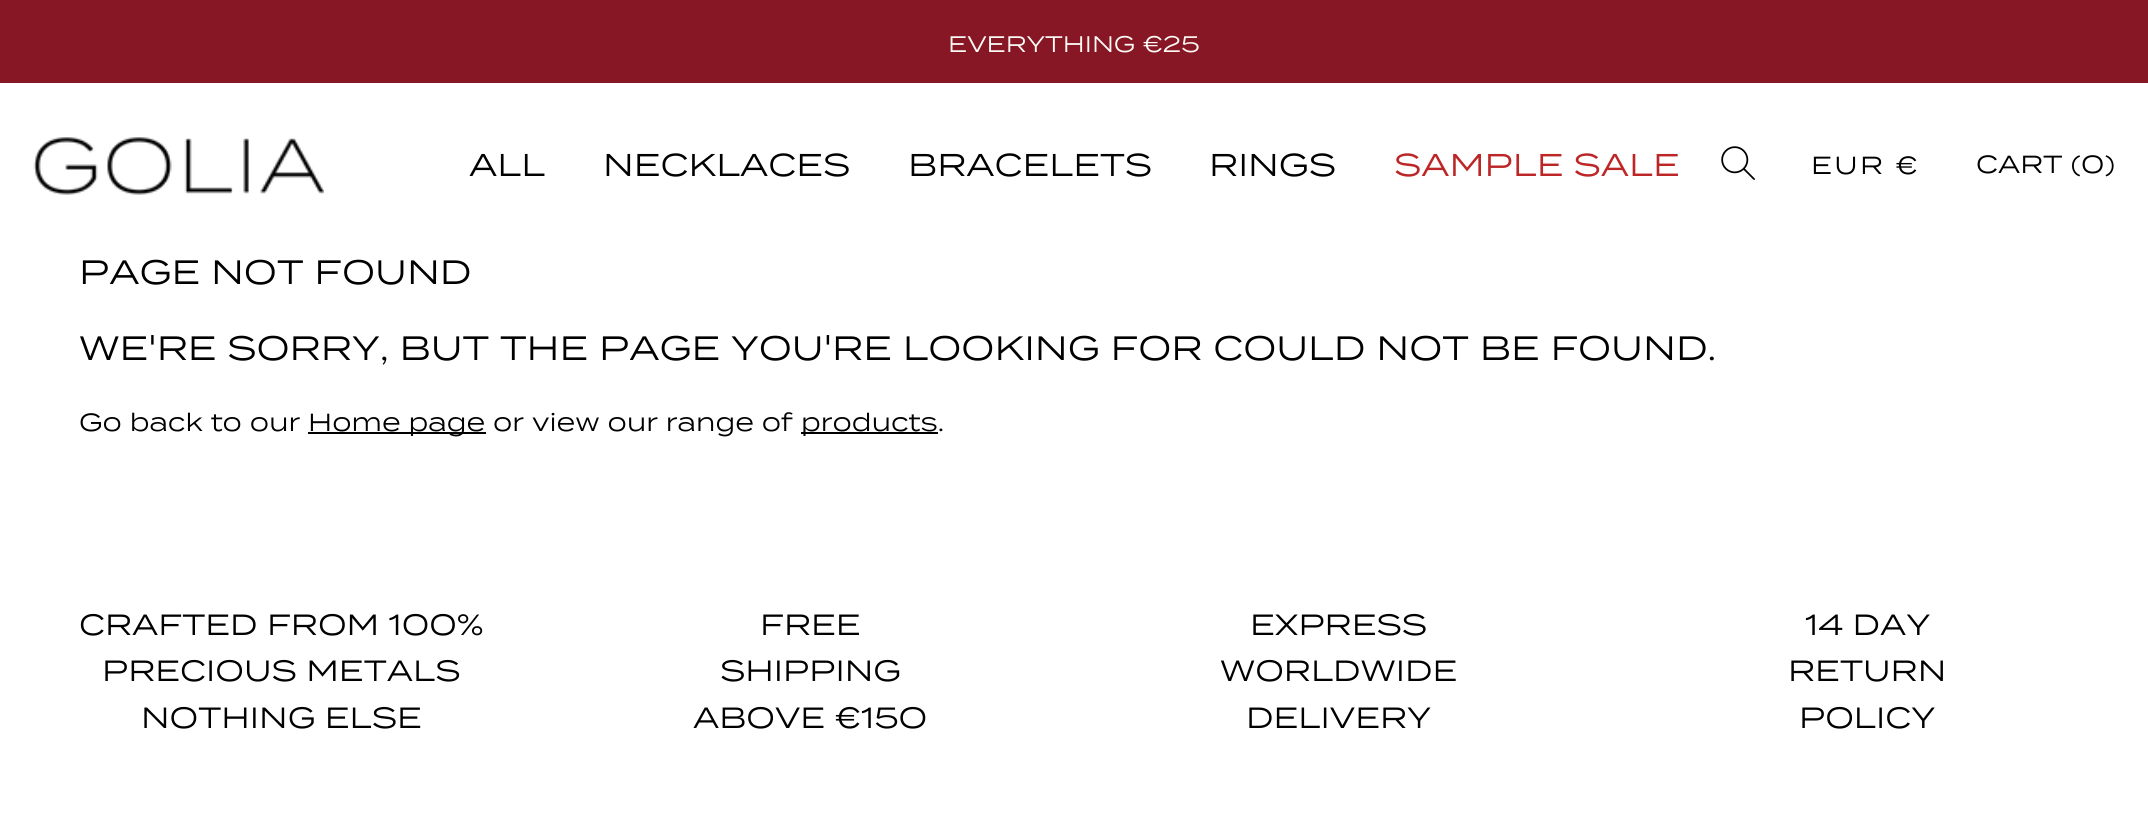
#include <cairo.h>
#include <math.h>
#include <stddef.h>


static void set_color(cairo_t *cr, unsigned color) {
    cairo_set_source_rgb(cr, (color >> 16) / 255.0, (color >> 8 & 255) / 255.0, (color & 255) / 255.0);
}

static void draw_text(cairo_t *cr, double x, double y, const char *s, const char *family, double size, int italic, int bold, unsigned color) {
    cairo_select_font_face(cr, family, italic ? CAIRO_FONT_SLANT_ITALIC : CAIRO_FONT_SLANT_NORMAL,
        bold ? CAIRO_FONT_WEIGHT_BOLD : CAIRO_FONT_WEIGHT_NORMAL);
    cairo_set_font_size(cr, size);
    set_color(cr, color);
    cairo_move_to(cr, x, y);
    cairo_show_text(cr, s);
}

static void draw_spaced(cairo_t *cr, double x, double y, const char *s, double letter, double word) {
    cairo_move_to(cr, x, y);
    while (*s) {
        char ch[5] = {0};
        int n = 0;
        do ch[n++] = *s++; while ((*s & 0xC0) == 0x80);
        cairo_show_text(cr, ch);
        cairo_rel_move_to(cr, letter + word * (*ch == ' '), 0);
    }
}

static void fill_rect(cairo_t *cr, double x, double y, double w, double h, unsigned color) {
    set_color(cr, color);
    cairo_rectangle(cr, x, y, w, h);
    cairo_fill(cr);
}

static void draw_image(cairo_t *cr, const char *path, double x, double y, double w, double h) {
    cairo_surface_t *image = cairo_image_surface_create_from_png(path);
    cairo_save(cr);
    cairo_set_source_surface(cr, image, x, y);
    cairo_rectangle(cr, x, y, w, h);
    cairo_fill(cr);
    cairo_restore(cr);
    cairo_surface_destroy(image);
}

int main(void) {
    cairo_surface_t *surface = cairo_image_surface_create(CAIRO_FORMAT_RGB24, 2148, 835);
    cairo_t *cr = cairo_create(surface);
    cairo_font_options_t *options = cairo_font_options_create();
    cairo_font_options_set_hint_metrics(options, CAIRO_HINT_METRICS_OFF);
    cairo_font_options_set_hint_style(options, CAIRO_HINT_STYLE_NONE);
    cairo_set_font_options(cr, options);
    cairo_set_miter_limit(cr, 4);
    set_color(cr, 0xFFFFFF);
    cairo_paint(cr);
    fill_rect(cr, 0, 0, 2148, 83, 0x871725);
    draw_text(cr, 948, 52, "EVERYTHING €25", "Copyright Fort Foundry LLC", 22.5, 0, 0, 0xFDFBF6);
    draw_image(cr, "assets/img1.png", 33, 137, 291, 58);
    draw_text(cr, 469, 176, "ALL", "Copyright Fort Foundry LLC", 31.5, 0, 0, 0x000000);
    draw_text(cr, 603, 176, "NECKLACES", "Copyright Fort Foundry LLC", 31.5, 0, 0, 0x000000);
    draw_text(cr, 908, 176, "BRACELETS", "Copyright Fort Foundry LLC", 31.5, 0, 0, 0x000000);
    draw_text(cr, 1209, 176, "RINGS", "Copyright Fort Foundry LLC", 31.5, 0, 0, 0x000000);
    draw_text(cr, 1394, 176, "SAMPLE SALE", "Copyright Fort Foundry LLC", 31.5, 0, 0, 0xBD2626);
    draw_image(cr, "assets/img2.png", 1721, 146, 34, 34);
    cairo_set_font_size(cr, 24.75);
    set_color(cr, 0x000000);
    draw_spaced(cr, 1811, 174, "EUR €", 2.25, 0);
    draw_text(cr, 1976, 173, "CART (0)", "Copyright Fort Foundry LLC", 24.75, 0, 0, 0x000000);
    draw_text(cr, 79, 284, "PAGE NOT FOUND", "Copyright Fort Foundry LLC", 33.75, 0, 0, 0x000000);
    draw_text(cr, 79, 360, "WE'RE SORRY, BUT THE PAGE YOU'RE LOOKING FOR COULD NOT BE FOUND.", "Copyright Fort Foundry LLC", 33.75, 0, 0, 0x000000);
    draw_text(cr, 79, 431, "Go back to our", "Copyright Fort Foundry LLC", 24.75, 0, 0, 0x000000);
    fill_rect(cr, 308, 432, 178, 2, 0x000000);
    draw_text(cr, 308, 431, "Home page or view our range of", "Copyright Fort Foundry LLC", 24.75, 0, 0, 0x000000);
    fill_rect(cr, 801, 432, 137, 2, 0x000000);
    draw_text(cr, 801, 431, "products.", "Copyright Fort Foundry LLC", 24.75, 0, 0, 0x000000);
    draw_text(cr, 79, 635, "CRAFTED FROM 100%", "Copyright Fort Foundry LLC", 29.25, 0, 0, 0x000000);
    draw_text(cr, 102, 681, "PRECIOUS METALS", "Copyright Fort Foundry LLC", 29.25, 0, 0, 0x000000);
    draw_text(cr, 141, 728, "NOTHING ELSE", "Copyright Fort Foundry LLC", 29.25, 0, 0, 0x000000);
    draw_text(cr, 760, 635, "FREE", "Copyright Fort Foundry LLC", 29.25, 0, 0, 0x000000);
    draw_text(cr, 720, 681, "SHIPPING", "Copyright Fort Foundry LLC", 29.25, 0, 0, 0x000000);
    draw_text(cr, 693, 728, "ABOVE €15O", "Copyright Fort Foundry LLC", 29.25, 0, 0, 0x000000);
    draw_text(cr, 1250, 635, "EXPRESS", "Copyright Fort Foundry LLC", 29.25, 0, 0, 0x000000);
    draw_text(cr, 1220, 681, "WORLDWIDE", "Copyright Fort Foundry LLC", 29.25, 0, 0, 0x000000);
    draw_text(cr, 1246, 728, "DELIVERY", "Copyright Fort Foundry LLC", 29.25, 0, 0, 0x000000);
    draw_text(cr, 1805, 635, "14 DAY", "Copyright Fort Foundry LLC", 29.25, 0, 0, 0x000000);
    draw_text(cr, 1788, 681, "RETURN", "Copyright Fort Foundry LLC", 29.25, 0, 0, 0x000000);
    draw_text(cr, 1799, 728, "POLICY", "Copyright Fort Foundry LLC", 29.25, 0, 0, 0x000000);
    cairo_surface_write_to_png(surface, "output.png");
    cairo_font_options_destroy(options);
    cairo_destroy(cr);
    cairo_surface_destroy(surface);
    return 0;
}
